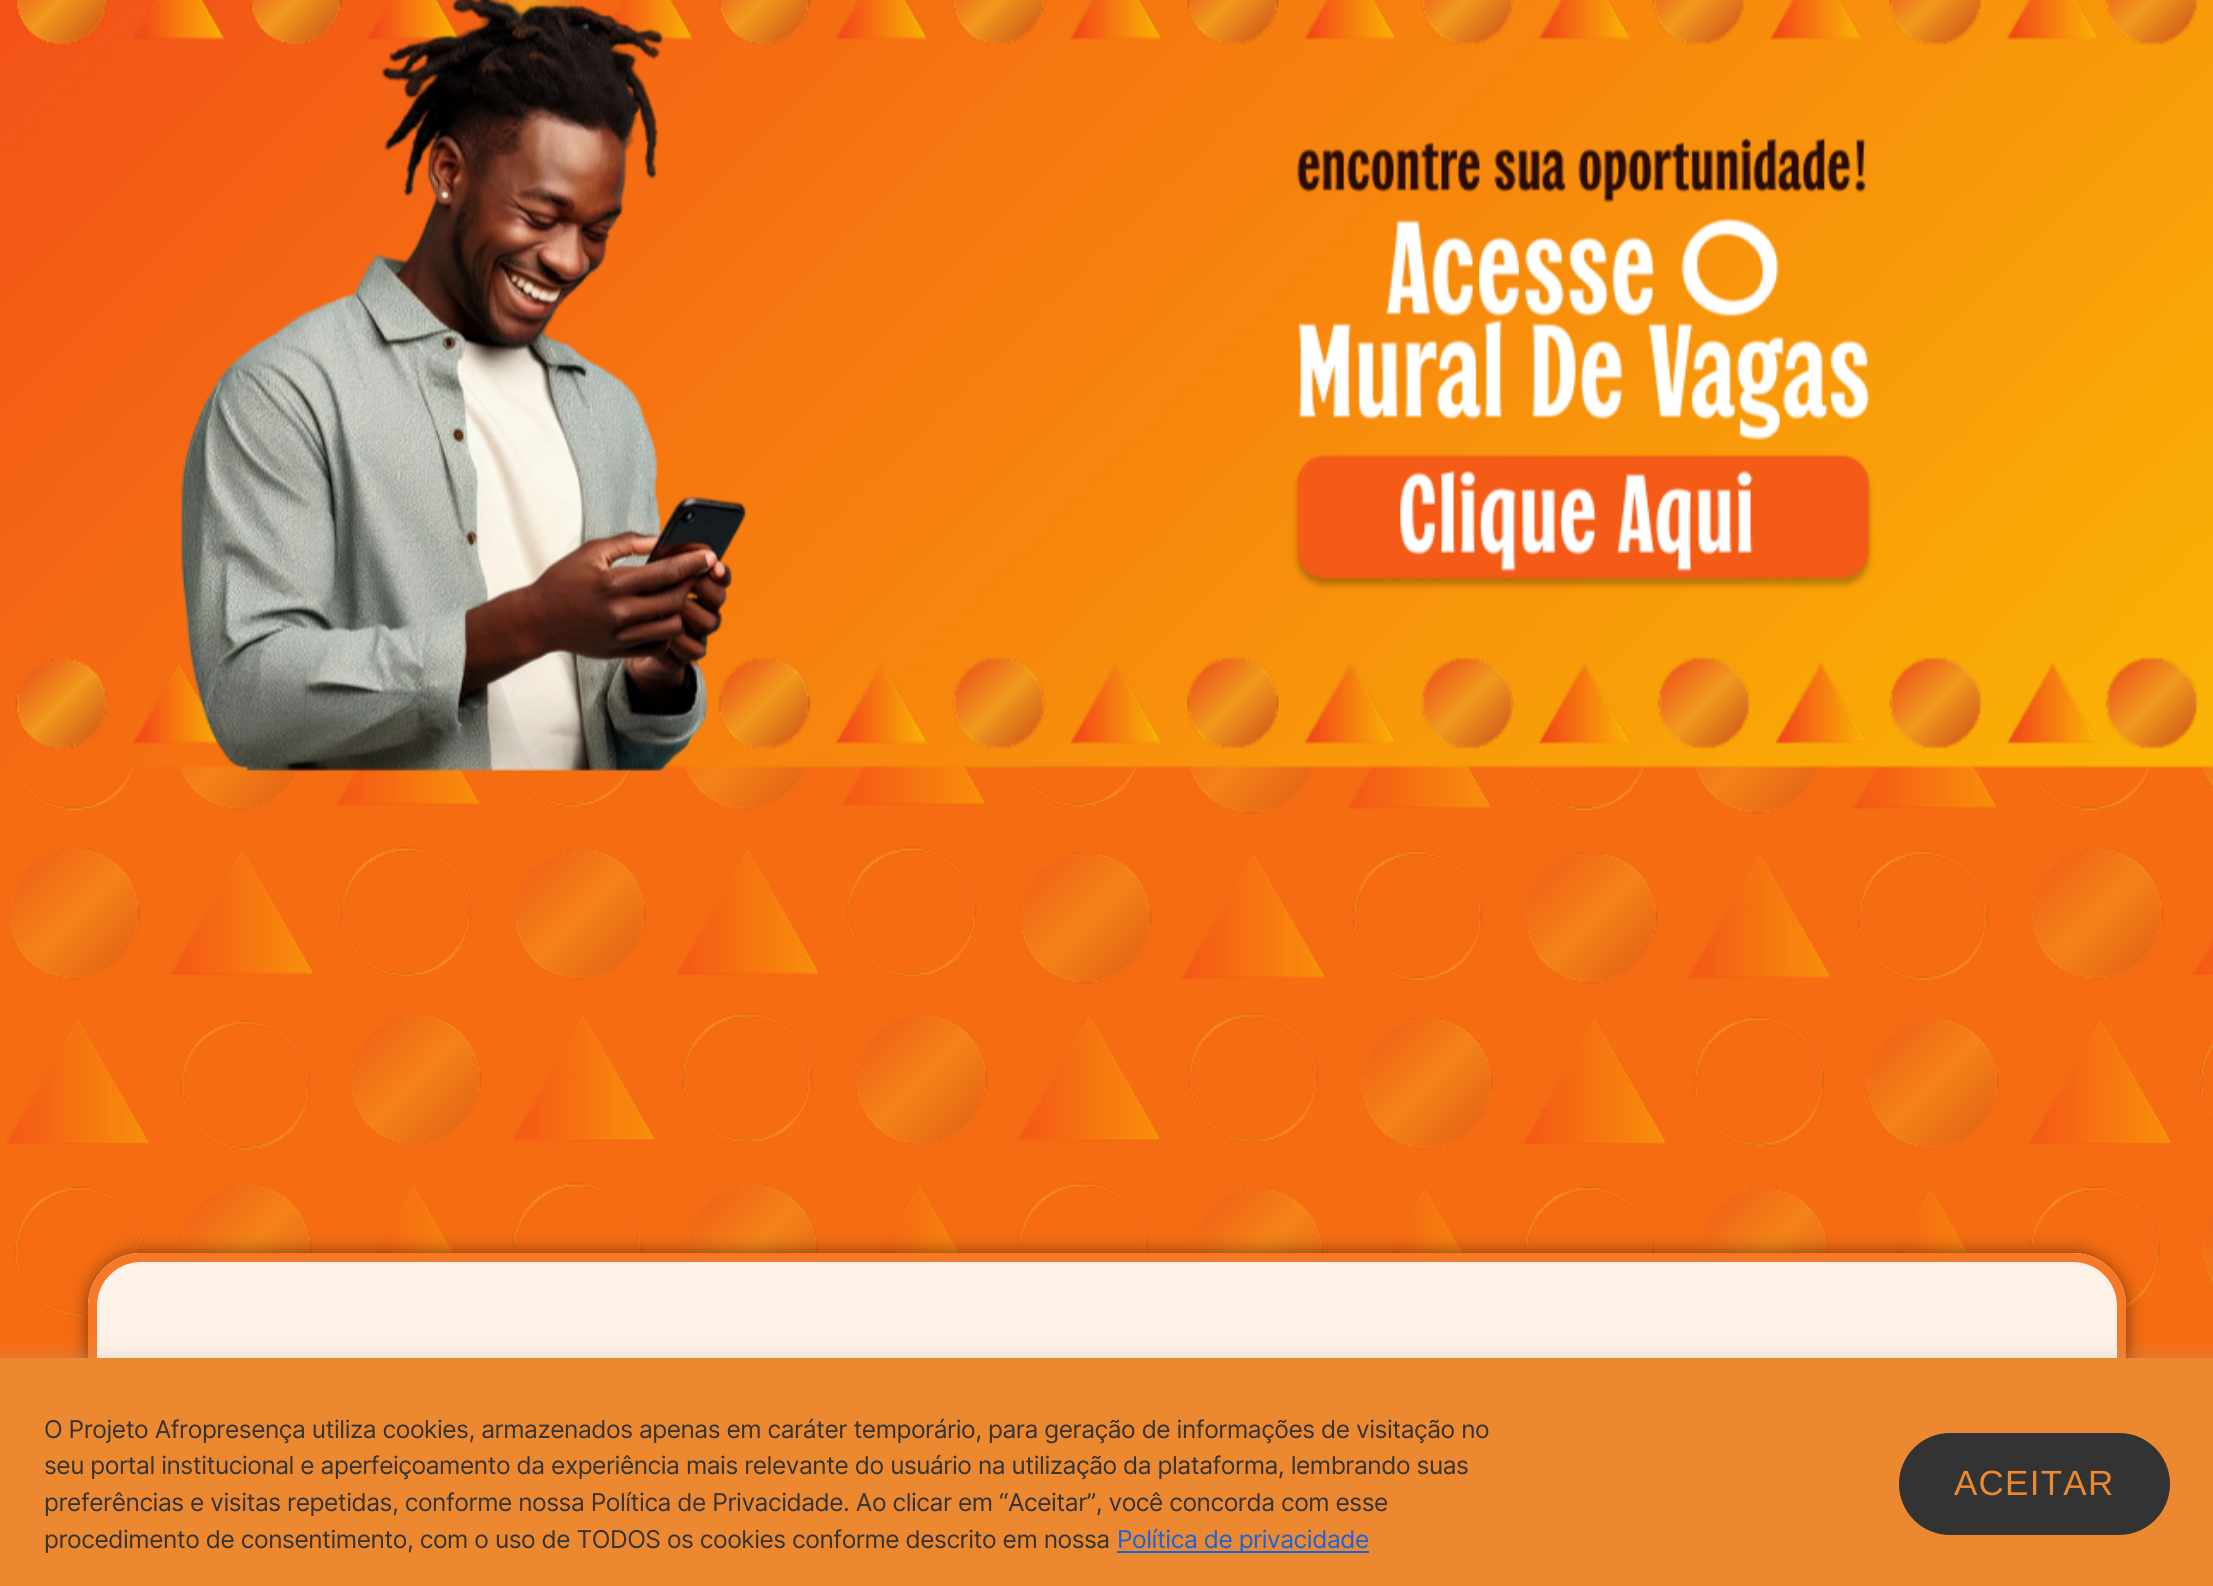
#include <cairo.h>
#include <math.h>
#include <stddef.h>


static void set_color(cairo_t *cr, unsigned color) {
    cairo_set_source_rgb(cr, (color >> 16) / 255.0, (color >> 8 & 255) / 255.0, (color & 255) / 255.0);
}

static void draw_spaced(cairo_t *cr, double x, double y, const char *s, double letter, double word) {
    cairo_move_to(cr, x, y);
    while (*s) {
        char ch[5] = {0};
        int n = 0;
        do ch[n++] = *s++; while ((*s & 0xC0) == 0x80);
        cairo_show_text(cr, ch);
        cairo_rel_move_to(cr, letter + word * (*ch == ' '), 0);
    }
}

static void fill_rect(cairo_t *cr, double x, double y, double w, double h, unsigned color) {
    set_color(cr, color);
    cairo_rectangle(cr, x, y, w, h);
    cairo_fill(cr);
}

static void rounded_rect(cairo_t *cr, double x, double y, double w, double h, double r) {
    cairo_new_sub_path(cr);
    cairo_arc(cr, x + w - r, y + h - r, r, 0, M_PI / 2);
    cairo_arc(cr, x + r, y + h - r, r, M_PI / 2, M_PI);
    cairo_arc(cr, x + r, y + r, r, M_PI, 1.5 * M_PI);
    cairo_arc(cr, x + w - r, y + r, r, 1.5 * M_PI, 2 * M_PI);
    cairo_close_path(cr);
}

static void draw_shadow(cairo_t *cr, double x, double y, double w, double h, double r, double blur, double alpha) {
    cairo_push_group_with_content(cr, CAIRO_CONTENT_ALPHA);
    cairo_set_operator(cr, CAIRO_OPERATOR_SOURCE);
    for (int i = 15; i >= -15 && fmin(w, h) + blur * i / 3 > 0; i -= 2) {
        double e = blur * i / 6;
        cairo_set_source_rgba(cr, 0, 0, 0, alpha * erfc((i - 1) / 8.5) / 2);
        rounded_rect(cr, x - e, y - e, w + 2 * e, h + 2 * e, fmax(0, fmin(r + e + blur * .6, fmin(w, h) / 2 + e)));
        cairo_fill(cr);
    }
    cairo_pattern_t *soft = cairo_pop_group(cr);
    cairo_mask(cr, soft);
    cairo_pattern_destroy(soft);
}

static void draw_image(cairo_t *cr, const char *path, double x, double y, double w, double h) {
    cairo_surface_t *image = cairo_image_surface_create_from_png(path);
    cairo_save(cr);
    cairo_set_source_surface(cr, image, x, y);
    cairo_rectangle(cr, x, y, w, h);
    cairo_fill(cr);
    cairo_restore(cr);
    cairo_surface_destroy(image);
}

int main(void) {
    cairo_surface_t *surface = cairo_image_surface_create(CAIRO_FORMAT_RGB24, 2213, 1586);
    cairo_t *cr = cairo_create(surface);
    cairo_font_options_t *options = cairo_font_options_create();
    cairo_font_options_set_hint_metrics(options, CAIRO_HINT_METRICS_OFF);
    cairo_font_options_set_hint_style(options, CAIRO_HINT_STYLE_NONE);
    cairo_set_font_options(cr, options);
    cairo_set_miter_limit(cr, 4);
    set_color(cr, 0xF56C12);
    cairo_paint(cr);
    draw_image(cr, "assets/img2.png", 6, 765, 2207, 593);
    draw_image(cr, "assets/img1.png", 0, 0, 2213, 771);
    set_color(cr, 0x000000);
    draw_shadow(cr, 88, 1253, 2038, 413, 53, 9, 0.5);
    set_color(cr, 0xF56C12);
    rounded_rect(cr, 92.5, 1257.5, 2029, 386, 48.5);
    cairo_fill_preserve(cr);
    cairo_set_line_width(cr, 9);
    cairo_stroke(cr);
    cairo_set_source_rgba(cr, 1, 1, 1, 0.9);
    rounded_rect(cr, 88, 1253, 2038, 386, 53);
    cairo_fill(cr);
    rounded_rect(cr, 92.5, 1257.5, 2029, 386, 48.5);
    cairo_set_source_rgba(cr, 0.961, 0.424, 0.071, 0.9);
    cairo_stroke(cr);
    set_color(cr, 0xACABAB);
    draw_shadow(cr, 0, 1356, 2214, 230, 0, 9, 0.3);
    fill_rect(cr, 0, 1358, 2213, 228, 0xEC8830);
    cairo_select_font_face(cr, "Inter", CAIRO_FONT_SLANT_NORMAL, CAIRO_FONT_WEIGHT_NORMAL);
    cairo_set_font_size(cr, 24.5);
    set_color(cr, 0x333333);
    draw_spaced(cr, 44, 1438, "O Projeto Afropresença utiliza cookies, armazenados apenas em caráter temporário, para geração de informações de visitação no", -0.47, 0);
    draw_spaced(cr, 44, 1474, "seu portal institucional e aperfeiçoamento da experiência mais relevante do usuário na utilização da plataforma, lembrando suas", -0.47, 0);
    draw_spaced(cr, 44, 1511, "preferências e visitas repetidas, conforme nossa Política de Privacidade. Ao clicar em “Aceitar”, você concorda com esse", -0.47, 0);
    draw_spaced(cr, 44, 1548, "procedimento de consentimento, com o uso de TODOS os cookies conforme descrito em nossa", -0.47, 0);
    fill_rect(cr, 1117, 1551, 252, 2, 0x1863DC);
    draw_spaced(cr, 1117, 1548, "Política de privacidade", -0.47, 0);
    set_color(cr, 0x333333);
    rounded_rect(cr, 1901, 1435, 267, 98, 49);
    cairo_fill_preserve(cr);
    cairo_set_line_width(cr, 4);
    cairo_stroke(cr);
    cairo_select_font_face(cr, "Liberation Sans", CAIRO_FONT_SLANT_NORMAL, CAIRO_FONT_WEIGHT_NORMAL);
    cairo_set_font_size(cr, 35);
    set_color(cr, 0xEC8830);
    draw_spaced(cr, 1954, 1495, "ACEITAR", 1.25, 0);
    cairo_surface_write_to_png(surface, "output.png");
    cairo_font_options_destroy(options);
    cairo_destroy(cr);
    cairo_surface_destroy(surface);
    return 0;
}
